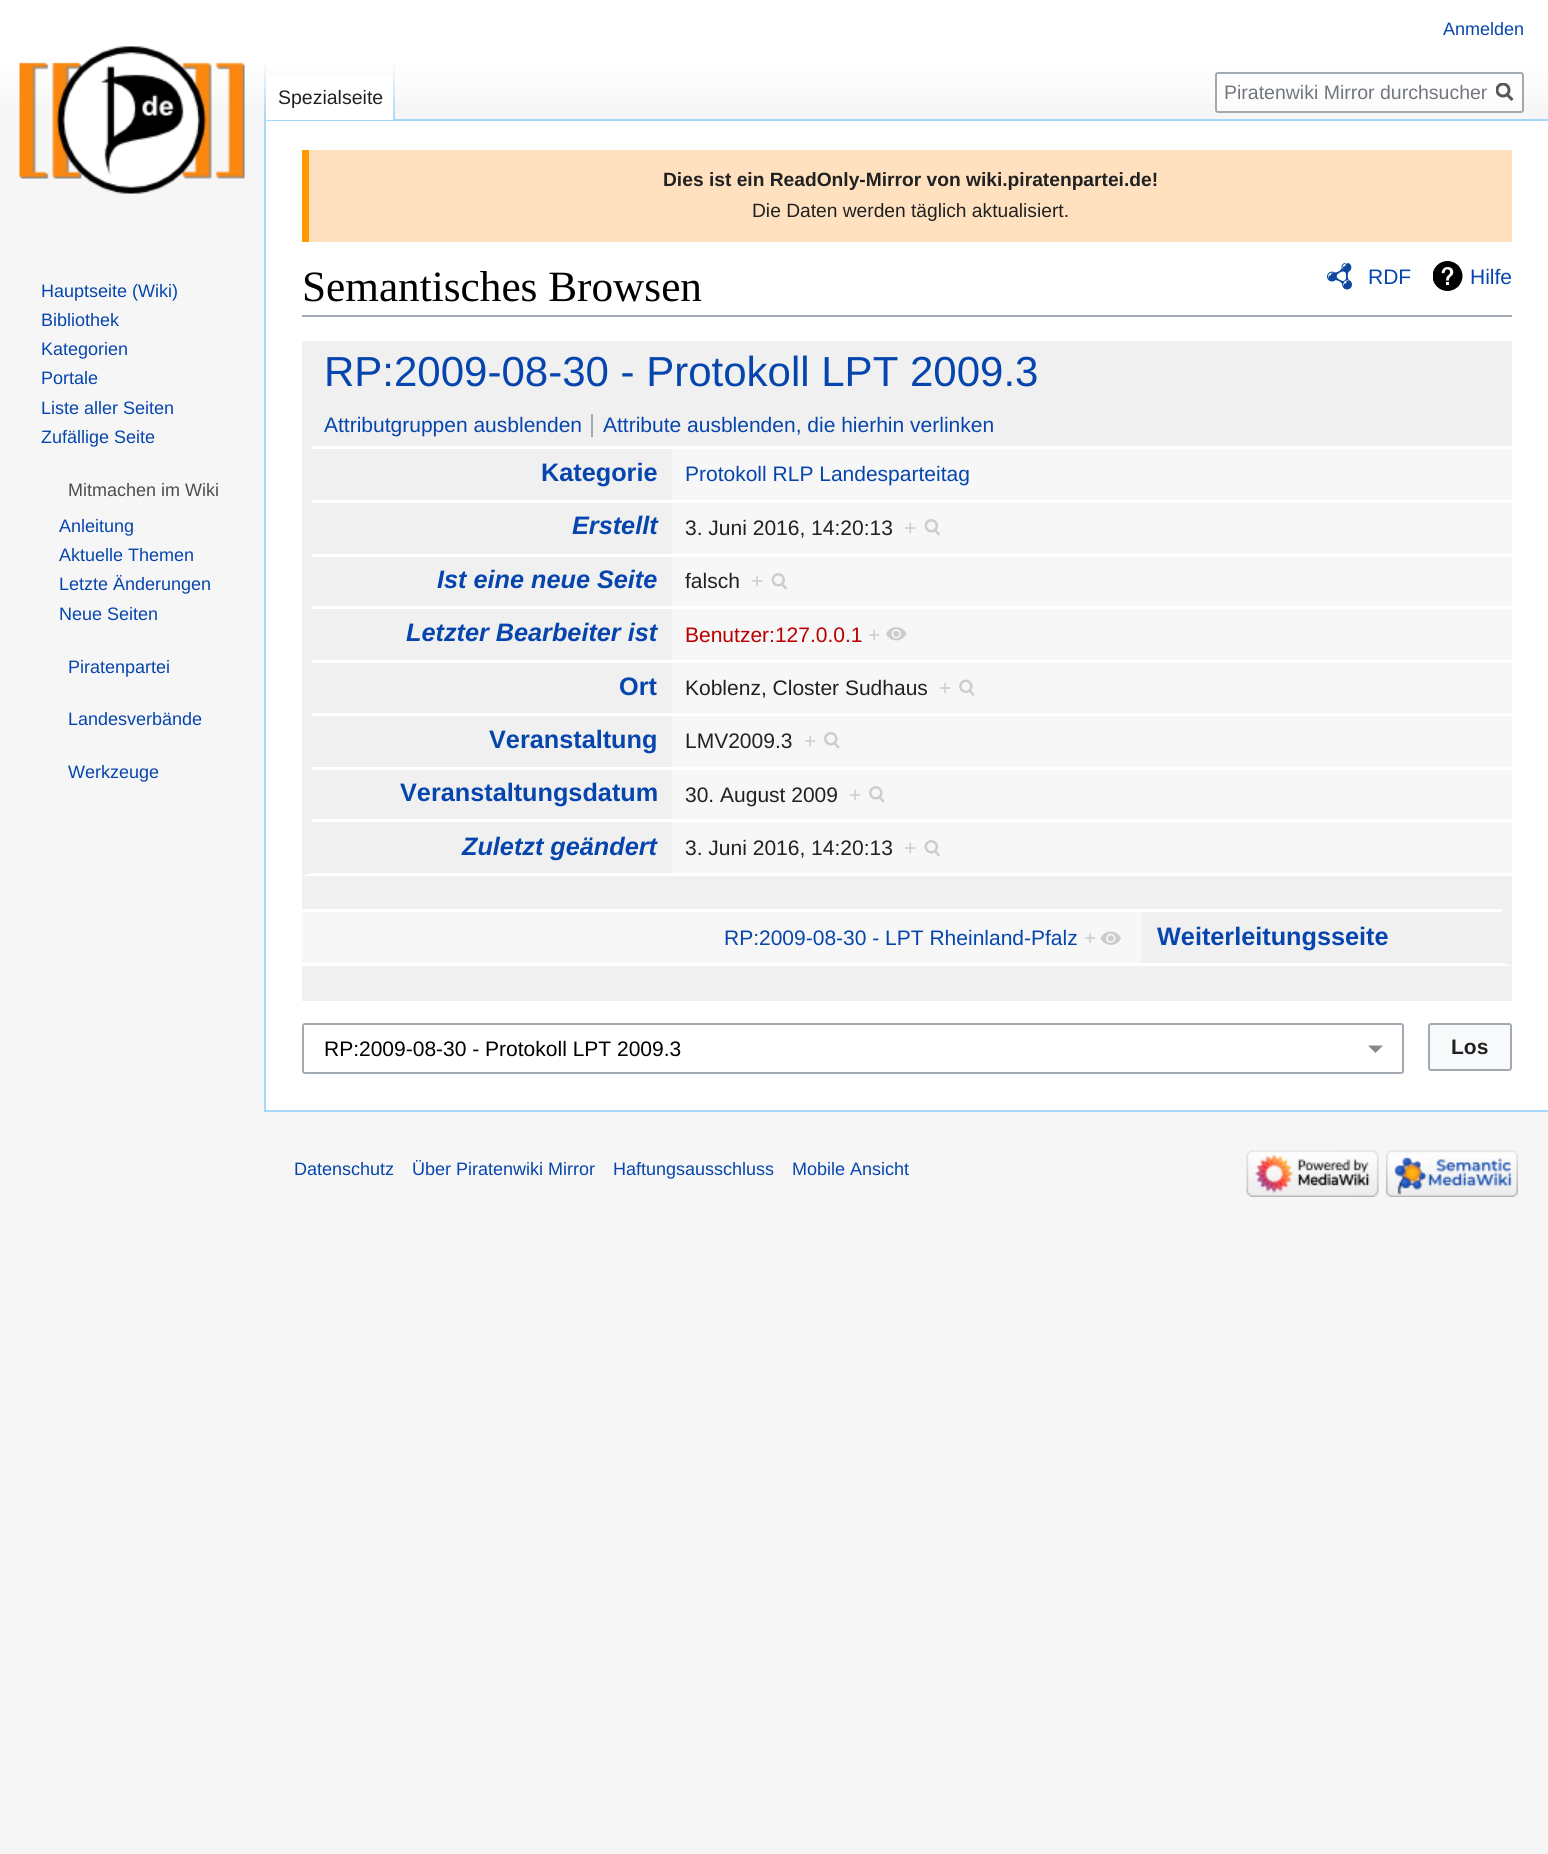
#include <cairo.h>
#include <math.h>
#include <stddef.h>


static void set_color(cairo_t *cr, unsigned color) {
    cairo_set_source_rgb(cr, (color >> 16) / 255.0, (color >> 8 & 255) / 255.0, (color & 255) / 255.0);
}

static void draw_text(cairo_t *cr, double x, double y, const char *s, const char *family, double size, int italic, int bold, unsigned color) {
    cairo_select_font_face(cr, family, italic ? CAIRO_FONT_SLANT_ITALIC : CAIRO_FONT_SLANT_NORMAL,
        bold ? CAIRO_FONT_WEIGHT_BOLD : CAIRO_FONT_WEIGHT_NORMAL);
    cairo_set_font_size(cr, size);
    set_color(cr, color);
    cairo_move_to(cr, x, y);
    cairo_show_text(cr, s);
}

static void fill_rect(cairo_t *cr, double x, double y, double w, double h, unsigned color) {
    set_color(cr, color);
    cairo_rectangle(cr, x, y, w, h);
    cairo_fill(cr);
}

static void rounded_rect(cairo_t *cr, double x, double y, double w, double h, double r) {
    cairo_new_sub_path(cr);
    cairo_arc(cr, x + w - r, y + h - r, r, 0, M_PI / 2);
    cairo_arc(cr, x + r, y + h - r, r, M_PI / 2, M_PI);
    cairo_arc(cr, x + r, y + r, r, M_PI, 1.5 * M_PI);
    cairo_arc(cr, x + w - r, y + r, r, 1.5 * M_PI, 2 * M_PI);
    cairo_close_path(cr);
}

static void draw_image(cairo_t *cr, const char *path, double x, double y, double w, double h) {
    cairo_surface_t *image = cairo_image_surface_create_from_png(path);
    cairo_save(cr);
    cairo_set_source_surface(cr, image, x, y);
    cairo_rectangle(cr, x, y, w, h);
    cairo_fill(cr);
    cairo_restore(cr);
    cairo_surface_destroy(image);
}

int main(void) {
    cairo_surface_t *surface = cairo_image_surface_create(CAIRO_FORMAT_RGB24, 1548, 1854);
    cairo_t *cr = cairo_create(surface);
    cairo_font_options_t *options = cairo_font_options_create();
    cairo_font_options_set_hint_metrics(options, CAIRO_HINT_METRICS_OFF);
    cairo_font_options_set_hint_style(options, CAIRO_HINT_STYLE_NONE);
    cairo_set_font_options(cr, options);
    cairo_set_miter_limit(cr, 4);
    cairo_pattern_t *gradient;
    set_color(cr, 0xF6F6F6);
    cairo_paint(cr);
    gradient = cairo_pattern_create_linear(774, 0, 774, 120);
    cairo_pattern_add_color_stop_rgba(gradient, 0.5, 1, 1, 1, 1);
    cairo_pattern_add_color_stop_rgba(gradient, 1, 0.965, 0.965, 0.965, 1);
    cairo_set_source(cr, gradient);
    cairo_pattern_destroy(gradient);
    cairo_rectangle(cr, 0, 0, 1548, 103);
    cairo_fill(cr);
    draw_text(cr, 1443, 35, "Anmelden", "Liberation Sans", 18, 0, 0, 0x0645AD);
    fill_rect(cr, 264, 119, 1284, 2, 0xA7D7F9);
    fill_rect(cr, 264, 1110, 1284, 2, 0xA7D7F9);
    fill_rect(cr, 264, 119, 2, 993, 0xA7D7F9);
    gradient = cairo_pattern_create_linear(265, 60, 265, 120);
    cairo_pattern_add_color_stop_rgba(gradient, 0, 0.655, 0.843, 0.976, 0);
    cairo_pattern_add_color_stop_rgba(gradient, 1, 0.655, 0.843, 0.976, 1);
    cairo_set_source(cr, gradient);
    cairo_pattern_destroy(gradient);
    cairo_rectangle(cr, 264, 60, 2, 60);
    cairo_fill(cr);
    fill_rect(cr, 266, 77, 127, 43, 0xFFFFFF);
    gradient = cairo_pattern_create_linear(394, 60, 394, 120);
    cairo_pattern_add_color_stop_rgba(gradient, 0, 1, 1, 1, 1);
    cairo_pattern_add_color_stop_rgba(gradient, 1, 0.655, 0.843, 0.976, 1);
    cairo_set_source(cr, gradient);
    cairo_pattern_destroy(gradient);
    cairo_rectangle(cr, 393, 60, 2, 60);
    cairo_fill(cr);
    draw_text(cr, 278, 104, "Spezialseite", "Liberation Sans", 19.5, 0, 0, 0x202122);
    cairo_set_source_rgba(cr, 1, 1, 1, 0.5);
    rounded_rect(cr, 1216, 73, 307, 39, 2);
    cairo_fill_preserve(cr);
    set_color(cr, 0xA2A9B1);
    cairo_stroke(cr);
    cairo_save(cr);
    cairo_rectangle(cr, 1224, 81, 263, 23);
    cairo_clip(cr);
    draw_text(cr, 1224, 99, "Piratenwiki Mirror durchsuchen", "Liberation Sans", 19.5, 0, 0, 0x72777D);
    cairo_restore(cr);
    cairo_new_path(cr);
    cairo_move_to(cr, 1512.5, 100);
    cairo_line_to(cr, 1506.5, 94);
    set_color(cr, 0x54595D);
    cairo_set_line_width(cr, 3);
    cairo_stroke(cr);
    cairo_save(cr);
    cairo_rectangle(cr, 1496, 83, 18, 19);
    cairo_clip(cr);
    cairo_arc(cr, 1503, 90, 6, 0, 2 * M_PI);
    cairo_stroke(cr);
    cairo_restore(cr);
    draw_image(cr, "assets/img1.png", 19, 46, 226, 148);
    draw_text(cr, 41, 297, "Hauptseite (Wiki)", "Liberation Sans", 18, 0, 0, 0x0645AD);
    draw_text(cr, 41, 326, "Bibliothek", "Liberation Sans", 18, 0, 0, 0x0645AD);
    draw_text(cr, 41, 355, "Kategorien", "Liberation Sans", 18, 0, 0, 0x0645AD);
    draw_text(cr, 41, 384, "Portale", "Liberation Sans", 18, 0, 0, 0x0645AD);
    draw_text(cr, 41, 414, "Liste aller Seiten", "Liberation Sans", 18, 0, 0, 0x0645AD);
    draw_text(cr, 41, 443, "Zufällige Seite", "Liberation Sans", 18, 0, 0, 0x0645AD);
    set_color(cr, 0x797979);
    cairo_new_path(cr);
    cairo_move_to(cr, 139.5, 489.5);
    cairo_line_to(cr, 139, 490);
    cairo_line_to(cr, 138.5, 489.5);
    cairo_close_path(cr);
    cairo_fill(cr);
    draw_text(cr, 68, 496, "Mitmachen im Wiki", "Liberation Sans", 18, 0, 0, 0x4D4D4D);
    draw_text(cr, 59, 532, "Anleitung", "Liberation Sans", 18, 0, 0, 0x0645AD);
    draw_text(cr, 59, 561, "Aktuelle Themen", "Liberation Sans", 18, 0, 0, 0x0645AD);
    draw_text(cr, 59, 590, "Letzte Änderungen", "Liberation Sans", 18, 0, 0, 0x0645AD);
    draw_text(cr, 59, 620, "Neue Seiten", "Liberation Sans", 18, 0, 0, 0x0645AD);
    set_color(cr, 0x797979);
    cairo_new_path(cr);
    cairo_move_to(cr, 138.5, 666.5);
    cairo_line_to(cr, 139, 666.5);
    cairo_line_to(cr, 138.5, 667);
    cairo_close_path(cr);
    cairo_fill(cr);
    draw_text(cr, 68, 673, "Piratenpartei", "Liberation Sans", 18, 0, 0, 0x0645AD);
    set_color(cr, 0x797979);
    cairo_new_path(cr);
    cairo_move_to(cr, 138.5, 719);
    cairo_line_to(cr, 139, 719);
    cairo_line_to(cr, 138.5, 719.5);
    cairo_close_path(cr);
    cairo_fill(cr);
    draw_text(cr, 68, 725, "Landesverbände", "Liberation Sans", 18, 0, 0, 0x0645AD);
    set_color(cr, 0x797979);
    cairo_new_path(cr);
    cairo_move_to(cr, 138.5, 771.5);
    cairo_line_to(cr, 139, 771.5);
    cairo_line_to(cr, 138.5, 772);
    cairo_close_path(cr);
    cairo_fill(cr);
    draw_text(cr, 68, 778, "Werkzeuge", "Liberation Sans", 18, 0, 0, 0x0645AD);
    fill_rect(cr, 266, 121, 1282, 989, 0xFFFFFF);
    fill_rect(cr, 309, 150, 1203, 92, 0xFFE1BF);
    fill_rect(cr, 302, 150, 7, 92, 0xFF9900);
    draw_text(cr, 663, 186, "Dies ist ein ReadOnly-Mirror von wiki.piratenpartei.de!", "Liberation Sans", 19.2, 0, 1, 0x202122);
    draw_text(cr, 752, 217, "Die Daten werden täglich aktualisiert.", "Liberation Sans", 19.2, 0, 0, 0x202122);
    fill_rect(cr, 302, 315, 1210, 2, 0xA2A9B1);
    draw_text(cr, 302, 301, "Semantisches Browsen", "Liberation Serif", 43.25, 0, 0, 0x000000);
    draw_image(cr, "assets/img2.png", 1327, 263, 25, 27);
    draw_text(cr, 1368, 284, "RDF", "Liberation Sans", 21, 0, 0, 0x0645AD);
    draw_image(cr, "assets/img3.png", 1433, 261, 30, 30);
    draw_text(cr, 1470, 284, "Hilfe", "Liberation Sans", 21, 0, 0, 0x0645AD);
    fill_rect(cr, 302, 341, 1210, 63, 0xF0F0F0);
    draw_text(cr, 324, 386, "RP:2009-08-30 - Protokoll LPT 2009.3", "Liberation Sans", 42, 0, 0, 0x0645AD);
    fill_rect(cr, 302, 404, 1210, 42, 0xF0F0F0);
    draw_text(cr, 324, 432, "Attributgruppen ausblenden", "Liberation Sans", 21, 0, 0, 0x0645AD);
    fill_rect(cr, 591, 414, 2, 23, 0xA2A9B1);
    draw_text(cr, 603, 432, "Attribute ausblenden, die hierhin verlinken", "Liberation Sans", 21, 0, 0, 0x0645AD);
    set_color(cr, 0xF0F0F0);
    cairo_new_path(cr);
    cairo_move_to(cr, 302, 876);
    cairo_line_to(cr, 302, 446);
    cairo_line_to(cr, 312, 446);
    cairo_line_to(cr, 312, 873);
    cairo_close_path(cr);
    cairo_fill(cr);
    fill_rect(cr, 312, 449, 360, 51, 0xF0F0F0);
    draw_text(cr, 541, 481, "Kategorie", "Liberation Sans", 25.25, 0, 1, 0x0645AD);
    fill_rect(cr, 672, 449, 840, 51, 0xF7F7F7);
    draw_text(cr, 685, 481, "Protokoll RLP Landesparteitag", "Liberation Sans", 21, 0, 0, 0x0645AD);
    fill_rect(cr, 312, 503, 360, 51, 0xF0F0F0);
    draw_text(cr, 572, 534, "Erstellt", "Liberation Sans", 25.25, 1, 1, 0x0645AD);
    fill_rect(cr, 672, 503, 840, 51, 0xF7F7F7);
    draw_text(cr, 685, 535, "3. Juni 2016, 14:20:13", "Liberation Sans", 21, 0, 0, 0x202122);
    draw_text(cr, 904, 535, "+", "Liberation Sans", 21, 0, 0, 0xCCCCCC);
    draw_image(cr, "assets/img4.png", 924, 519, 16, 17);
    fill_rect(cr, 312, 557, 360, 49, 0xF0F0F0);
    draw_text(cr, 437, 588, "Ist eine neue Seite", "Liberation Sans", 25.25, 1, 1, 0x0645AD);
    fill_rect(cr, 672, 557, 840, 49, 0xF7F7F7);
    draw_text(cr, 685, 588, "falsch", "Liberation Sans", 21, 0, 0, 0x202122);
    draw_text(cr, 751, 588, "+", "Liberation Sans", 21, 0, 0, 0xCCCCCC);
    draw_image(cr, "assets/img4.png", 771, 573, 16, 17);
    fill_rect(cr, 312, 609, 360, 51, 0xF0F0F0);
    draw_text(cr, 406, 641, "Letzter Bearbeiter ist", "Liberation Sans", 25.25, 1, 1, 0x0645AD);
    fill_rect(cr, 672, 609, 840, 51, 0xF7F7F7);
    draw_text(cr, 685, 642, "Benutzer:127.0.0.1", "Liberation Sans", 21, 0, 0, 0xBA0000);
    draw_text(cr, 868, 642, "+", "Liberation Sans", 21, 0, 0, 0xCCCCCC);
    draw_image(cr, "assets/img5.png", 886, 627, 21, 14);
    fill_rect(cr, 312, 663, 360, 50, 0xF0F0F0);
    draw_text(cr, 619, 695, "Ort", "Liberation Sans", 25.25, 0, 1, 0x0645AD);
    fill_rect(cr, 672, 663, 840, 50, 0xF7F7F7);
    draw_text(cr, 685, 695, "Koblenz, Closter Sudhaus", "Liberation Sans", 21, 0, 0, 0x202122);
    draw_text(cr, 939, 695, "+", "Liberation Sans", 21, 0, 0, 0xCCCCCC);
    draw_image(cr, "assets/img6.png", 959, 679, 16, 17);
    fill_rect(cr, 312, 716, 360, 51, 0xF0F0F0);
    draw_text(cr, 489, 748, "Veranstaltung", "Liberation Sans", 25.25, 0, 1, 0x0645AD);
    fill_rect(cr, 672, 716, 840, 51, 0xF7F7F7);
    draw_text(cr, 685, 748, "LMV2009.3", "Liberation Sans", 21, 0, 0, 0x202122);
    draw_text(cr, 804, 748, "+", "Liberation Sans", 21, 0, 0, 0xCCCCCC);
    draw_image(cr, "assets/img7.png", 824, 732, 16, 17);
    fill_rect(cr, 312, 770, 360, 49, 0xF0F0F0);
    draw_text(cr, 400, 801, "Veranstaltungsdatum", "Liberation Sans", 25.25, 0, 1, 0x0645AD);
    fill_rect(cr, 672, 770, 840, 49, 0xF7F7F7);
    draw_text(cr, 685, 802, "30. August 2009", "Liberation Sans", 21, 0, 0, 0x202122);
    draw_text(cr, 849, 802, "+", "Liberation Sans", 21, 0, 0, 0xCCCCCC);
    draw_image(cr, "assets/img7.png", 869, 786, 16, 17);
    fill_rect(cr, 312, 822, 360, 51, 0xF0F0F0);
    draw_text(cr, 462, 855, "Zuletzt geändert", "Liberation Sans", 25.25, 1, 1, 0x0645AD);
    fill_rect(cr, 672, 822, 840, 51, 0xF7F7F7);
    draw_text(cr, 685, 855, "3. Juni 2016, 14:20:13", "Liberation Sans", 21, 0, 0, 0x202122);
    draw_text(cr, 904, 855, "+", "Liberation Sans", 21, 0, 0, 0xCCCCCC);
    draw_image(cr, "assets/img4.png", 924, 840, 16, 17);
    fill_rect(cr, 302, 876, 1210, 33, 0xF0F0F0);
    cairo_new_path(cr);
    cairo_move_to(cr, 1512, 909);
    cairo_line_to(cr, 1512, 966);
    cairo_line_to(cr, 1502, 963);
    cairo_line_to(cr, 1502, 909);
    cairo_close_path(cr);
    cairo_fill(cr);
    set_color(cr, 0xFFFFFF);
    cairo_new_path(cr);
    cairo_move_to(cr, 1512, 966);
    cairo_line_to(cr, 302, 966);
    cairo_line_to(cr, 302, 963);
    cairo_line_to(cr, 1502, 963);
    cairo_close_path(cr);
    cairo_fill(cr);
    fill_rect(cr, 302, 912, 840, 51, 0xF7F7F7);
    draw_text(cr, 724, 945, "RP:2009-08-30 - LPT Rheinland-Pfalz", "Liberation Sans", 21, 0, 0, 0x0645AD);
    draw_text(cr, 1084, 945, "+", "Liberation Sans", 21, 0, 0, 0xCCCCCC);
    draw_image(cr, "assets/img8.png", 1100, 931, 21, 14);
    fill_rect(cr, 1142, 912, 360, 51, 0xF0F0F0);
    draw_text(cr, 1157, 945, "Weiterleitungsseite", "Liberation Sans", 25.25, 0, 1, 0x0645AD);
    fill_rect(cr, 302, 966, 1210, 35, 0xF0F0F0);
    set_color(cr, 0x888888);
    cairo_new_path(cr);
    cairo_move_to(cr, 1368, 1045.5);
    cairo_line_to(cr, 1375.5, 1053);
    cairo_line_to(cr, 1383, 1045.5);
    cairo_close_path(cr);
    cairo_fill(cr);
    rounded_rect(cr, 303, 1024, 1100, 49, 2);
    set_color(cr, 0xA2A9B1);
    cairo_set_line_width(cr, 2);
    cairo_stroke(cr);
    draw_text(cr, 324, 1056, "RP:2009-08-30 - Protokoll LPT 2009.3", "Liberation Sans", 21, 0, 0, 0x000000);
    set_color(cr, 0xF8F9FA);
    rounded_rect(cr, 1429, 1024, 82, 46, 2);
    cairo_fill_preserve(cr);
    set_color(cr, 0xA2A9B1);
    cairo_stroke(cr);
    draw_text(cr, 1451, 1054, "Los", "Liberation Sans", 21, 0, 1, 0x202122);
    draw_text(cr, 294, 1175, "Datenschutz", "Liberation Sans", 18, 0, 0, 0x0645AD);
    draw_text(cr, 412, 1175, "Über Piratenwiki Mirror", "Liberation Sans", 18, 0, 0, 0x0645AD);
    draw_text(cr, 613, 1175, "Haftungsausschluss", "Liberation Sans", 18, 0, 0, 0x0645AD);
    draw_text(cr, 792, 1175, "Mobile Ansicht", "Liberation Sans", 18, 0, 0, 0x0645AD);
    draw_image(cr, "assets/img9.png", 1246, 1150, 133, 47);
    draw_image(cr, "assets/img10.png", 1386, 1150, 132, 47);
    cairo_surface_write_to_png(surface, "output.png");
    cairo_font_options_destroy(options);
    cairo_destroy(cr);
    cairo_surface_destroy(surface);
    return 0;
}
